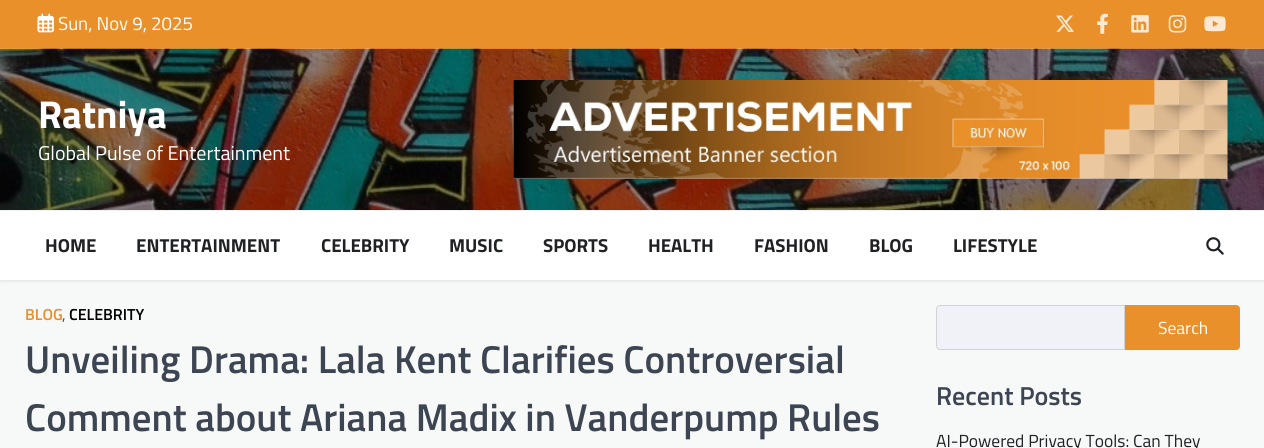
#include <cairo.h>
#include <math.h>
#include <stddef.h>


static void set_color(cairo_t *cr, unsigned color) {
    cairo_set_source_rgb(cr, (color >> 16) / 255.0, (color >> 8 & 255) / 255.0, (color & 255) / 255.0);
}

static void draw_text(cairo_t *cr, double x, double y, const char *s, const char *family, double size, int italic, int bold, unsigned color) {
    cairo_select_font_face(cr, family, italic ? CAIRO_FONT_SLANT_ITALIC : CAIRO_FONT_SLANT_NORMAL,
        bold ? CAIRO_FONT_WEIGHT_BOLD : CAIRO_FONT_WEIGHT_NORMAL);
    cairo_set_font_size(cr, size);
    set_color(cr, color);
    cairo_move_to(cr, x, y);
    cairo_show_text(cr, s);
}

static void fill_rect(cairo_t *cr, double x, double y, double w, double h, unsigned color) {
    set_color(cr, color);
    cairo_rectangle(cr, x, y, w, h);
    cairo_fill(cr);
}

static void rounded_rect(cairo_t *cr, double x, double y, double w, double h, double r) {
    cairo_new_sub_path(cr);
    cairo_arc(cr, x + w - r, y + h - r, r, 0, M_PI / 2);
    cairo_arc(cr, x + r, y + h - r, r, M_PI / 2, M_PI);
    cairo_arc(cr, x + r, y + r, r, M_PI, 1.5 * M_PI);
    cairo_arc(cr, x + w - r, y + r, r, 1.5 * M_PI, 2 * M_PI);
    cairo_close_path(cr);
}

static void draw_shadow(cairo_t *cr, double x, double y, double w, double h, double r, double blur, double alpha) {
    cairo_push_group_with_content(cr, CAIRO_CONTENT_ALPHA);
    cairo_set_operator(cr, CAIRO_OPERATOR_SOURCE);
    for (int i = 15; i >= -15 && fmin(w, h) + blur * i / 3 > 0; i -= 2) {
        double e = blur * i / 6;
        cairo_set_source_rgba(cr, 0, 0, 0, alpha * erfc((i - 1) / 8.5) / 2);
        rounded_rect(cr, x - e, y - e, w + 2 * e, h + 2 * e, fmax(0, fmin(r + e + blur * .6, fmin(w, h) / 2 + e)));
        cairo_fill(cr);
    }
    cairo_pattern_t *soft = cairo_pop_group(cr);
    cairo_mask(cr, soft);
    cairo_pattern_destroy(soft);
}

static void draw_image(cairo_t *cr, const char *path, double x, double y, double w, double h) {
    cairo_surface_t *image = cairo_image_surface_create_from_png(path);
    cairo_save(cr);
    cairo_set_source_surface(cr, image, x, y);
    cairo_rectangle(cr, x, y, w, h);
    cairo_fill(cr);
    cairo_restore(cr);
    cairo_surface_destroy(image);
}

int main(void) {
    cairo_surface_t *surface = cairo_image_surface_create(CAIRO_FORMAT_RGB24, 1264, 448);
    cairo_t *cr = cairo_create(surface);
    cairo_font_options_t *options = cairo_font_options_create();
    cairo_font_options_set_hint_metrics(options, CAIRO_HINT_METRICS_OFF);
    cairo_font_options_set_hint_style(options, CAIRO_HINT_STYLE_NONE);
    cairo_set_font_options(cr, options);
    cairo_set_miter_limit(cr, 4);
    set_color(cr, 0xF7F9F8);
    cairo_paint(cr);
    set_color(cr, 0x000000);
    draw_shadow(cr, 0, 1, 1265, 280, 0, 2, 0.1);
    fill_rect(cr, 0, 0, 1264, 49, 0xEA902A);
    draw_image(cr, "assets/img1.png", 37, 13, 17, 20);
    draw_text(cr, 58, 30, "Sun, Nov 9, 2025", "Titillium Web", 18.75, 0, 0, 0xFFFFFF);
    draw_image(cr, "assets/img2.png", 1056, 15, 18, 17);
    draw_image(cr, "assets/img3.png", 1097, 13, 11, 21);
    draw_image(cr, "assets/img4.png", 1131, 15, 18, 18);
    draw_image(cr, "assets/img5.png", 1168, 15, 19, 18);
    draw_image(cr, "assets/img6.png", 1204, 16, 22, 16);
    draw_image(cr, "assets/img7.png", 0, 48, 1264, 162);
    draw_text(cr, 38, 128, "Ratniya", "Titillium Web", 38.85, 0, 1, 0xFFFFFF);
    draw_text(cr, 38, 160, "Global Pulse of Entertainment", "Titillium Web", 20, 0, 0, 0xFFFFFF);
    draw_image(cr, "assets/img8.png", 513, 80, 715, 99);
    fill_rect(cr, 0, 211, 1264, 69, 0xFFFFFF);
    fill_rect(cr, 0, 210, 1264, 1, 0xF1F1F1);
    draw_text(cr, 45, 252, "HOME", "Titillium Web", 18.75, 0, 1, 0x202124);
    draw_text(cr, 136, 252, "ENTERTAINMENT", "Titillium Web", 18.75, 0, 1, 0x202124);
    draw_text(cr, 321, 252, "CELEBRITY", "Titillium Web", 18.75, 0, 1, 0x202124);
    draw_text(cr, 449, 252, "MUSIC", "Titillium Web", 18.75, 0, 1, 0x202124);
    draw_text(cr, 543, 252, "SPORTS", "Titillium Web", 18.75, 0, 1, 0x202124);
    draw_text(cr, 648, 252, "HEALTH", "Titillium Web", 18.75, 0, 1, 0x202124);
    draw_text(cr, 754, 252, "FASHION", "Titillium Web", 18.75, 0, 1, 0x202124);
    draw_text(cr, 869, 252, "BLOG", "Titillium Web", 18.75, 0, 1, 0x202124);
    draw_text(cr, 953, 252, "LIFESTYLE", "Titillium Web", 18.75, 0, 1, 0x202124);
    draw_image(cr, "assets/img9.png", 1206, 237, 18, 18);
    draw_text(cr, 25, 320, "BLOG", "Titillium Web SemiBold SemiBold", 16, 0, 0, 0xEA902A);
    draw_text(cr, 62, 320, ",", "Titillium Web", 16, 0, 0, 0x3D4452);
    draw_text(cr, 69, 320, "CELEBRITY", "Titillium Web SemiBold SemiBold", 16, 0, 0, 0x000000);
    draw_text(cr, 25, 373, "Unveiling Drama: Lala Kent Clarifies Controversial", "Titillium Web SemiBold SemiBold", 38.85, 0, 0, 0x3D4452);
    draw_text(cr, 25, 431, "Comment about Ariana Madix in Vanderpump Rules", "Titillium Web SemiBold SemiBold", 38.85, 0, 0, 0x3D4452);
    set_color(cr, 0xF0F2F7);
    cairo_new_path(cr);
    cairo_move_to(cr, 940, 305.5);
    cairo_line_to(cr, 1124.5, 305.5);
    cairo_line_to(cr, 1124.5, 349.5);
    cairo_line_to(cr, 940, 349.5);
    cairo_curve_to(cr, 938, 349.5, 936.5, 348, 936.5, 346);
    cairo_line_to(cr, 936.5, 309);
    cairo_curve_to(cr, 936.5, 307, 938, 305.5, 940, 305.5);
    cairo_close_path(cr);
    cairo_fill_preserve(cr);
    set_color(cr, 0xD1D3D7);
    cairo_set_line_width(cr, 1);
    cairo_stroke(cr);
    set_color(cr, 0xEA902A);
    cairo_new_path(cr);
    cairo_move_to(cr, 1125.5, 305.5);
    cairo_line_to(cr, 1236, 305.5);
    cairo_curve_to(cr, 1238, 305.5, 1239.5, 307, 1239.5, 309);
    cairo_line_to(cr, 1239.5, 346);
    cairo_curve_to(cr, 1239.5, 348, 1238, 349.5, 1236, 349.5);
    cairo_line_to(cr, 1125.5, 349.5);
    cairo_close_path(cr);
    cairo_fill_preserve(cr);
    cairo_stroke(cr);
    draw_text(cr, 1158, 334, "Search", "Titillium Web", 17.5, 0, 0, 0xFFFFFF);
    draw_text(cr, 936, 405, "Recent Posts", "Titillium Web SemiBold SemiBold", 26, 0, 0, 0x3D4452);
    draw_text(cr, 936, 447, "AI-Powered Privacy Tools: Can They", "Titillium Web", 17.5, 0, 0, 0x202124);
    cairo_surface_write_to_png(surface, "output.png");
    cairo_font_options_destroy(options);
    cairo_destroy(cr);
    cairo_surface_destroy(surface);
    return 0;
}
